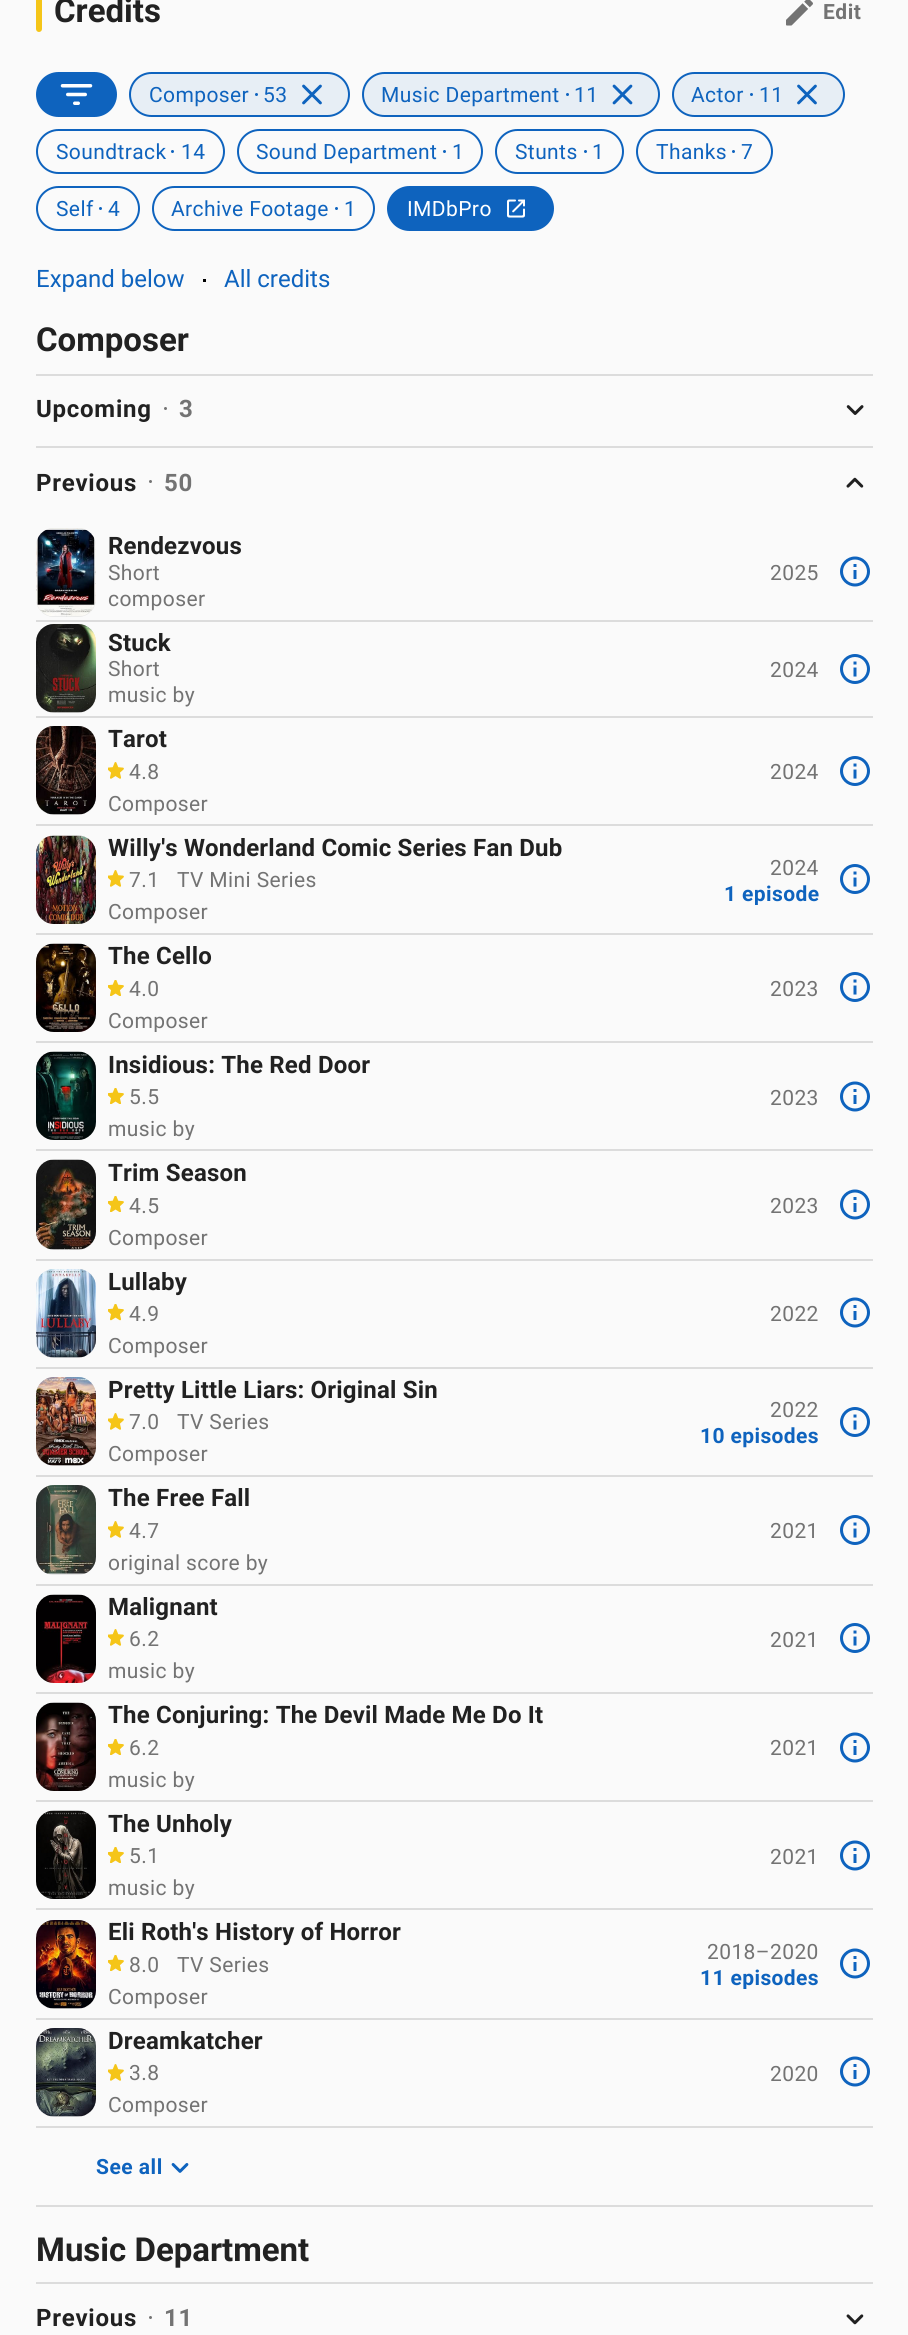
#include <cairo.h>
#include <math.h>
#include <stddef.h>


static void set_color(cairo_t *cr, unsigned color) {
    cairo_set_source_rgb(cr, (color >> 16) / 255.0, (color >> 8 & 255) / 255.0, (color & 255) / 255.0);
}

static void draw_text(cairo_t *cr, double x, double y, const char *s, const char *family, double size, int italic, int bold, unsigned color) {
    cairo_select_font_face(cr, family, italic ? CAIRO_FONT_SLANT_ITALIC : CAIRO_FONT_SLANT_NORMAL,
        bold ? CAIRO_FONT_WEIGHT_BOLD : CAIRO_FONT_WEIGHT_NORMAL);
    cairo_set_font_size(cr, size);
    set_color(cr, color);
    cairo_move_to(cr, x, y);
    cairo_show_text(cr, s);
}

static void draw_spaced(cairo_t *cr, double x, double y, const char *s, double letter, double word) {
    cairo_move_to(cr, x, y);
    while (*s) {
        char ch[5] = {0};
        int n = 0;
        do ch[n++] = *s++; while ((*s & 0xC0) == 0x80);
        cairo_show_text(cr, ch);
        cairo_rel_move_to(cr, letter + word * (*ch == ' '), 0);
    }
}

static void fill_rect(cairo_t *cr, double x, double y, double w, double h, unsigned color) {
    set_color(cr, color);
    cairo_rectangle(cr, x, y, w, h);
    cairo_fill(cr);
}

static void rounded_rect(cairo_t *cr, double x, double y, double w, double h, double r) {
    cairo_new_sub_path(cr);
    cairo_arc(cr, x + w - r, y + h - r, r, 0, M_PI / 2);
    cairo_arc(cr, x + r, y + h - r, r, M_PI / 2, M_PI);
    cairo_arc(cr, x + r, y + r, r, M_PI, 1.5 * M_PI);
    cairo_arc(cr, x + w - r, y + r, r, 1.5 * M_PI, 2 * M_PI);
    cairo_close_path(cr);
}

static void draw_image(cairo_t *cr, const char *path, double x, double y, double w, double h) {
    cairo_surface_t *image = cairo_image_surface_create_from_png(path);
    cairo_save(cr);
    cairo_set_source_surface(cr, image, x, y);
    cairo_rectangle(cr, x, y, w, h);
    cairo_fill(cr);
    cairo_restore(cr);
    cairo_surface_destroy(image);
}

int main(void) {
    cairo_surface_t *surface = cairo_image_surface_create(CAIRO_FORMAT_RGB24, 908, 2335);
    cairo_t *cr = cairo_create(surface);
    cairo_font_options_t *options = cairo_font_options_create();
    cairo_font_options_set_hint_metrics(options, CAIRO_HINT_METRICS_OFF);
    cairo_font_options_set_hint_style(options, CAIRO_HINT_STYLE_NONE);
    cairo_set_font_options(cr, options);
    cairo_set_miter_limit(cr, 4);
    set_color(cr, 0xFAFAFA);
    cairo_paint(cr);
    set_color(cr, 0xF5C518);
    rounded_rect(cr, 36, -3, 6, 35, 3);
    cairo_fill(cr);
    draw_text(cr, 54, 22, "Credits", "Roboto", 33, 0, 1, 0x212121);
    draw_image(cr, "assets/img1.png", 786, 0, 27, 26);
    cairo_set_font_size(cr, 21);
    set_color(cr, 0x737373);
    draw_spaced(cr, 823, 19, "Edit", 0.5, 0);
    set_color(cr, 0x0E63BE);
    rounded_rect(cr, 36, 72, 81, 45, 22.5);
    cairo_fill(cr);
    draw_image(cr, "assets/img2.png", 60, 84, 33, 21);
    set_color(cr, 0xE7EEF5);
    rounded_rect(cr, 130, 73, 219, 43, 21.5);
    cairo_fill_preserve(cr);
    set_color(cr, 0x0E63BE);
    cairo_stroke(cr);
    cairo_select_font_face(cr, "Roboto", CAIRO_FONT_SLANT_NORMAL, CAIRO_FONT_WEIGHT_NORMAL);
    draw_spaced(cr, 149, 102, "Composer", 0.4, 0);
    cairo_new_path(cr);
    cairo_arc(cr, 256.5, 94.5, 1.5, 0, 2 * M_PI);
    cairo_fill(cr);
    draw_spaced(cr, 263, 102, "53", 0.4, 0);
    draw_image(cr, "assets/img3.png", 302, 84, 20, 21);
    set_color(cr, 0xE7EEF5);
    rounded_rect(cr, 363, 73, 296, 43, 21.5);
    cairo_fill_preserve(cr);
    set_color(cr, 0x0E63BE);
    cairo_stroke(cr);
    draw_spaced(cr, 381, 102, "Music Department", 0.4, 0);
    cairo_new_path(cr);
    cairo_arc(cr, 567.5, 94.5, 1.5, 0, 2 * M_PI);
    cairo_fill(cr);
    draw_spaced(cr, 574, 102, "11", 0.4, 0);
    draw_image(cr, "assets/img4.png", 612, 84, 21, 21);
    set_color(cr, 0xE7EEF5);
    rounded_rect(cr, 673, 73, 171, 43, 21.5);
    cairo_fill_preserve(cr);
    set_color(cr, 0x0E63BE);
    cairo_stroke(cr);
    draw_spaced(cr, 691, 102, "Actor", 0.4, 0);
    cairo_new_path(cr);
    cairo_arc(cr, 751.5, 94.5, 1.5, 0, 2 * M_PI);
    cairo_fill(cr);
    draw_spaced(cr, 759, 102, "11", 0.4, 0);
    draw_image(cr, "assets/img3.png", 797, 84, 20, 21);
    rounded_rect(cr, 37, 130, 187, 43, 21.5);
    cairo_stroke(cr);
    draw_spaced(cr, 56, 159, "Soundtrack", 0.4, 0);
    cairo_new_path(cr);
    cairo_arc(cr, 172.5, 151.5, 1.5, 0, 2 * M_PI);
    cairo_fill(cr);
    draw_spaced(cr, 181, 159, "14", 0.4, 0);
    rounded_rect(cr, 238, 130, 244, 43, 21.5);
    cairo_stroke(cr);
    draw_spaced(cr, 256, 159, "Sound Department", 0.4, 0);
    cairo_new_path(cr);
    cairo_arc(cr, 444.5, 151.5, 1.5, 0, 2 * M_PI);
    cairo_fill(cr);
    draw_spaced(cr, 452, 159, "1", 0.4, 0);
    rounded_rect(cr, 496, 130, 127, 43, 21.5);
    cairo_stroke(cr);
    draw_spaced(cr, 515, 159, "Stunts", 0.4, 0);
    cairo_new_path(cr);
    cairo_arc(cr, 585.5, 151.5, 1.5, 0, 2 * M_PI);
    cairo_fill(cr);
    draw_spaced(cr, 592, 159, "1", 0.4, 0);
    rounded_rect(cr, 637, 130, 135, 43, 21.5);
    cairo_stroke(cr);
    draw_spaced(cr, 656, 159, "Thanks", 0.4, 0);
    cairo_new_path(cr);
    cairo_arc(cr, 733.5, 151.5, 1.5, 0, 2 * M_PI);
    cairo_fill(cr);
    draw_spaced(cr, 741, 159, "7", 0.4, 0);
    rounded_rect(cr, 37, 187, 102, 43, 21.5);
    cairo_stroke(cr);
    draw_spaced(cr, 56, 216, "Self", 0.4, 0);
    cairo_new_path(cr);
    cairo_arc(cr, 100.5, 208.5, 1.5, 0, 2 * M_PI);
    cairo_fill(cr);
    draw_spaced(cr, 108, 216, "4", 0.4, 0);
    rounded_rect(cr, 153, 187, 221, 43, 21.5);
    cairo_stroke(cr);
    draw_spaced(cr, 171, 216, "Archive Footage", 0.4, 0);
    cairo_new_path(cr);
    cairo_arc(cr, 336.5, 208.5, 1.5, 0, 2 * M_PI);
    cairo_fill(cr);
    draw_spaced(cr, 344, 216, "1", 0.4, 0);
    rounded_rect(cr, 387, 186, 167, 45, 22.5);
    cairo_fill(cr);
    set_color(cr, 0xFFFFFF);
    draw_spaced(cr, 407, 216, "IMDbPro", 0.4, 0);
    draw_image(cr, "assets/img5.png", 507, 199, 18, 19);
    draw_text(cr, 36, 287, "Expand below", "Roboto", 24, 0, 0, 0x0E63BE);
    fill_rect(cr, 203, 279, 3, 3, 0x000000);
    draw_text(cr, 224, 287, "All credits", "Roboto", 24, 0, 0, 0x0E63BE);
    draw_text(cr, 36, 351, "Composer", "Roboto", 33, 0, 1, 0x212121);
    fill_rect(cr, 36, 374, 837, 2, 0xDCDCDC);
    cairo_set_font_size(cr, 24);
    set_color(cr, 0x212121);
    draw_spaced(cr, 36, 417, "Upcoming", 0.75, 0);
    set_color(cr, 0x737373);
    cairo_new_path(cr);
    cairo_arc(cr, 165.5, 408.5, 1.5, 0, 2 * M_PI);
    cairo_fill(cr);
    draw_spaced(cr, 179, 417, "3", 0.75, 0);
    draw_image(cr, "assets/img6.png", 846, 405, 18, 10);
    fill_rect(cr, 36, 446, 837, 2, 0xDCDCDC);
    set_color(cr, 0x212121);
    draw_spaced(cr, 36, 491, "Previous", 0.75, 0);
    set_color(cr, 0x737373);
    cairo_new_path(cr);
    cairo_arc(cr, 150.5, 481.5, 1.5, 0, 2 * M_PI);
    cairo_fill(cr);
    draw_spaced(cr, 164, 491, "50", 0.75, 0);
    draw_image(cr, "assets/img7.png", 846, 477, 18, 11);
    set_color(cr, 0xE5E5E5);
    rounded_rect(cr, 36, 528, 60, 89, 18);
    cairo_fill(cr);
    draw_image(cr, "assets/img8.png", 36, 528, 60, 89);
    set_color(cr, 0x212121);
    draw_spaced(cr, 108, 554, "Rendezvous", 0.2, 0);
    cairo_select_font_face(cr, "Roboto", CAIRO_FONT_SLANT_NORMAL, CAIRO_FONT_WEIGHT_NORMAL);
    cairo_set_font_size(cr, 21);
    set_color(cr, 0x737373);
    draw_spaced(cr, 108, 580, "Short", 0.4, 0);
    draw_spaced(cr, 108, 606, "composer", 0.4, 0);
    draw_spaced(cr, 770, 580, "2025", 0.4, 0);
    draw_image(cr, "assets/img9.png", 840, 556, 30, 31);
    fill_rect(cr, 36, 620, 837, 2, 0xDCDCDC);
    set_color(cr, 0xE5E5E5);
    rounded_rect(cr, 36, 624, 60, 89, 18);
    cairo_fill(cr);
    draw_image(cr, "assets/img10.png", 36, 624, 60, 89);
    cairo_select_font_face(cr, "Roboto", CAIRO_FONT_SLANT_NORMAL, CAIRO_FONT_WEIGHT_BOLD);
    cairo_set_font_size(cr, 24);
    set_color(cr, 0x212121);
    draw_spaced(cr, 108, 651, "Stuck", 0.2, 0);
    cairo_select_font_face(cr, "Roboto", CAIRO_FONT_SLANT_NORMAL, CAIRO_FONT_WEIGHT_NORMAL);
    cairo_set_font_size(cr, 21);
    set_color(cr, 0x737373);
    draw_spaced(cr, 108, 676, "Short", 0.4, 0);
    draw_spaced(cr, 108, 702, "music by", 0.4, 0);
    draw_spaced(cr, 770, 677, "2024", 0.4, 0);
    draw_image(cr, "assets/img11.png", 840, 654, 30, 30);
    fill_rect(cr, 36, 716, 837, 2, 0xDCDCDC);
    set_color(cr, 0xE5E5E5);
    rounded_rect(cr, 36, 726, 60, 89, 18);
    cairo_fill(cr);
    draw_image(cr, "assets/img12.png", 36, 726, 60, 89);
    cairo_select_font_face(cr, "Roboto", CAIRO_FONT_SLANT_NORMAL, CAIRO_FONT_WEIGHT_BOLD);
    cairo_set_font_size(cr, 24);
    set_color(cr, 0x212121);
    draw_spaced(cr, 108, 747, "Tarot", 0.2, 0);
    draw_image(cr, "assets/img13.png", 108, 762, 16, 17);
    cairo_select_font_face(cr, "Roboto", CAIRO_FONT_SLANT_NORMAL, CAIRO_FONT_WEIGHT_NORMAL);
    cairo_set_font_size(cr, 21);
    set_color(cr, 0x737373);
    draw_spaced(cr, 129, 779, "4.8", 0.4, 0);
    cairo_save(cr);
    cairo_rectangle(cr, 108, 789, 591, 26);
    cairo_clip(cr);
    draw_spaced(cr, 108, 811, "Composer", 0.4, 0);
    cairo_restore(cr);
    draw_spaced(cr, 770, 779, "2024", 0.4, 0);
    draw_image(cr, "assets/img11.png", 840, 756, 30, 30);
    fill_rect(cr, 36, 824, 837, 2, 0xDCDCDC);
    draw_image(cr, "assets/img14.png", 36, 835, 60, 89);
    cairo_select_font_face(cr, "Roboto", CAIRO_FONT_SLANT_NORMAL, CAIRO_FONT_WEIGHT_BOLD);
    cairo_set_font_size(cr, 24);
    set_color(cr, 0x212121);
    draw_spaced(cr, 108, 856, "Willy's Wonderland Comic Series Fan Dub", 0.2, 0);
    draw_image(cr, "assets/img13.png", 108, 870, 16, 17);
    cairo_select_font_face(cr, "Roboto", CAIRO_FONT_SLANT_NORMAL, CAIRO_FONT_WEIGHT_NORMAL);
    cairo_set_font_size(cr, 21);
    set_color(cr, 0x737373);
    draw_spaced(cr, 129, 887, "7.1", 0.4, 0);
    draw_spaced(cr, 177, 887, "TV Mini Series", 0.4, 0);
    draw_spaced(cr, 108, 919, "Composer", 0.4, 0);
    draw_spaced(cr, 770, 875, "2024", 0.4, 0);
    cairo_save(cr);
    cairo_rectangle(cr, 723, 879, 96, 26);
    cairo_clip(cr);
    cairo_select_font_face(cr, "Roboto", CAIRO_FONT_SLANT_NORMAL, CAIRO_FONT_WEIGHT_BOLD);
    set_color(cr, 0x0E63BE);
    draw_spaced(cr, 724, 901, "1 episode", 0.4, 0);
    cairo_restore(cr);
    draw_image(cr, "assets/img11.png", 840, 864, 30, 30);
    fill_rect(cr, 36, 933, 837, 2, 0xDCDCDC);
    draw_image(cr, "assets/img15.png", 36, 943, 60, 89);
    cairo_select_font_face(cr, "Roboto", CAIRO_FONT_SLANT_NORMAL, CAIRO_FONT_WEIGHT_BOLD);
    cairo_set_font_size(cr, 24);
    set_color(cr, 0x212121);
    draw_spaced(cr, 108, 964, "The Cello", 0.2, 0);
    draw_image(cr, "assets/img16.png", 108, 980, 16, 16);
    cairo_select_font_face(cr, "Roboto", CAIRO_FONT_SLANT_NORMAL, CAIRO_FONT_WEIGHT_NORMAL);
    cairo_set_font_size(cr, 21);
    set_color(cr, 0x737373);
    draw_spaced(cr, 129, 996, "4.0", 0.4, 0);
    cairo_save(cr);
    cairo_rectangle(cr, 108, 1007, 591, 25);
    cairo_clip(cr);
    draw_spaced(cr, 108, 1028, "Composer", 0.4, 0);
    cairo_restore(cr);
    draw_spaced(cr, 770, 996, "2023", 0.4, 0);
    draw_image(cr, "assets/img11.png", 840, 972, 30, 30);
    fill_rect(cr, 36, 1041, 837, 2, 0xDCDCDC);
    draw_image(cr, "assets/img17.png", 36, 1051, 60, 89);
    cairo_select_font_face(cr, "Roboto", CAIRO_FONT_SLANT_NORMAL, CAIRO_FONT_WEIGHT_BOLD);
    cairo_set_font_size(cr, 24);
    set_color(cr, 0x212121);
    draw_spaced(cr, 108, 1073, "Insidious: The Red Door", 0.2, 0);
    draw_image(cr, "assets/img16.png", 108, 1088, 16, 16);
    cairo_select_font_face(cr, "Roboto", CAIRO_FONT_SLANT_NORMAL, CAIRO_FONT_WEIGHT_NORMAL);
    cairo_set_font_size(cr, 21);
    set_color(cr, 0x737373);
    draw_spaced(cr, 129, 1104, "5.5", 0.4, 0);
    cairo_save(cr);
    cairo_rectangle(cr, 108, 1115, 591, 25);
    cairo_clip(cr);
    draw_spaced(cr, 108, 1136, "music by", 0.4, 0);
    cairo_restore(cr);
    draw_spaced(cr, 770, 1105, "2023", 0.4, 0);
    draw_image(cr, "assets/img9.png", 840, 1081, 30, 31);
    fill_rect(cr, 36, 1149, 837, 2, 0xDCDCDC);
    set_color(cr, 0xE5E5E5);
    rounded_rect(cr, 36, 1160, 60, 90, 18);
    cairo_fill(cr);
    draw_image(cr, "assets/img18.png", 36, 1159, 60, 91);
    cairo_select_font_face(cr, "Roboto", CAIRO_FONT_SLANT_NORMAL, CAIRO_FONT_WEIGHT_BOLD);
    cairo_set_font_size(cr, 24);
    set_color(cr, 0x212121);
    draw_spaced(cr, 108, 1181, "Trim Season", 0.2, 0);
    draw_image(cr, "assets/img16.png", 108, 1196, 16, 16);
    cairo_select_font_face(cr, "Roboto", CAIRO_FONT_SLANT_NORMAL, CAIRO_FONT_WEIGHT_NORMAL);
    cairo_set_font_size(cr, 21);
    set_color(cr, 0x737373);
    draw_spaced(cr, 129, 1213, "4.5", 0.4, 0);
    draw_spaced(cr, 108, 1245, "Composer", 0.4, 0);
    draw_spaced(cr, 770, 1213, "2023", 0.4, 0);
    draw_image(cr, "assets/img9.png", 840, 1189, 30, 31);
    fill_rect(cr, 36, 1259, 837, 2, 0xDCDCDC);
    set_color(cr, 0xE5E5E5);
    rounded_rect(cr, 36, 1269, 60, 89, 18);
    cairo_fill(cr);
    draw_image(cr, "assets/img19.png", 36, 1269, 60, 89);
    cairo_select_font_face(cr, "Roboto", CAIRO_FONT_SLANT_NORMAL, CAIRO_FONT_WEIGHT_BOLD);
    cairo_set_font_size(cr, 24);
    set_color(cr, 0x212121);
    draw_spaced(cr, 108, 1290, "Lullaby", 0.2, 0);
    draw_image(cr, "assets/img20.png", 108, 1304, 16, 17);
    cairo_select_font_face(cr, "Roboto", CAIRO_FONT_SLANT_NORMAL, CAIRO_FONT_WEIGHT_NORMAL);
    cairo_set_font_size(cr, 21);
    set_color(cr, 0x737373);
    draw_spaced(cr, 129, 1321, "4.9", 0.4, 0);
    draw_spaced(cr, 108, 1353, "Composer", 0.4, 0);
    draw_spaced(cr, 770, 1321, "2022", 0.4, 0);
    draw_image(cr, "assets/img9.png", 840, 1297, 30, 31);
    fill_rect(cr, 36, 1367, 837, 2, 0xDCDCDC);
    set_color(cr, 0xE5E5E5);
    rounded_rect(cr, 36, 1377, 60, 89, 18);
    cairo_fill(cr);
    draw_image(cr, "assets/img21.png", 36, 1377, 60, 89);
    cairo_select_font_face(cr, "Roboto", CAIRO_FONT_SLANT_NORMAL, CAIRO_FONT_WEIGHT_BOLD);
    cairo_set_font_size(cr, 24);
    set_color(cr, 0x212121);
    draw_spaced(cr, 108, 1398, "Pretty Little Liars: Original Sin", 0.2, 0);
    draw_image(cr, "assets/img13.png", 108, 1413, 16, 17);
    cairo_select_font_face(cr, "Roboto", CAIRO_FONT_SLANT_NORMAL, CAIRO_FONT_WEIGHT_NORMAL);
    cairo_set_font_size(cr, 21);
    set_color(cr, 0x737373);
    draw_spaced(cr, 129, 1429, "7.0", 0.4, 0);
    draw_spaced(cr, 177, 1429, "TV Series", 0.4, 0);
    draw_spaced(cr, 108, 1461, "Composer", 0.4, 0);
    draw_spaced(cr, 770, 1417, "2022", 0.4, 0);
    cairo_select_font_face(cr, "Roboto", CAIRO_FONT_SLANT_NORMAL, CAIRO_FONT_WEIGHT_BOLD);
    set_color(cr, 0x0E63BE);
    draw_spaced(cr, 700, 1443, "10 episodes", 0.4, 0);
    draw_image(cr, "assets/img11.png", 840, 1407, 30, 30);
    fill_rect(cr, 36, 1475, 837, 2, 0xDCDCDC);
    set_color(cr, 0xE5E5E5);
    rounded_rect(cr, 36, 1485, 60, 90, 18);
    cairo_fill(cr);
    draw_image(cr, "assets/img22.png", 36, 1485, 60, 89);
    cairo_set_font_size(cr, 24);
    set_color(cr, 0x212121);
    draw_spaced(cr, 108, 1506, "The Free Fall", 0.2, 0);
    draw_image(cr, "assets/img13.png", 108, 1521, 16, 17);
    cairo_select_font_face(cr, "Roboto", CAIRO_FONT_SLANT_NORMAL, CAIRO_FONT_WEIGHT_NORMAL);
    cairo_set_font_size(cr, 21);
    set_color(cr, 0x737373);
    draw_spaced(cr, 129, 1538, "4.7", 0.4, 0);
    draw_spaced(cr, 108, 1570, "original score by", 0.4, 0);
    draw_spaced(cr, 770, 1538, "2021", 0.4, 0);
    draw_image(cr, "assets/img11.png", 840, 1515, 30, 30);
    fill_rect(cr, 36, 1584, 837, 2, 0xDCDCDC);
    draw_image(cr, "assets/img23.png", 36, 1594, 60, 89);
    cairo_select_font_face(cr, "Roboto", CAIRO_FONT_SLANT_NORMAL, CAIRO_FONT_WEIGHT_BOLD);
    cairo_set_font_size(cr, 24);
    set_color(cr, 0x212121);
    draw_spaced(cr, 108, 1615, "Malignant", 0.2, 0);
    draw_image(cr, "assets/img13.png", 108, 1629, 16, 17);
    cairo_select_font_face(cr, "Roboto", CAIRO_FONT_SLANT_NORMAL, CAIRO_FONT_WEIGHT_NORMAL);
    cairo_set_font_size(cr, 21);
    set_color(cr, 0x737373);
    draw_spaced(cr, 129, 1646, "6.2", 0.4, 0);
    draw_spaced(cr, 108, 1678, "music by", 0.4, 0);
    draw_spaced(cr, 770, 1647, "2021", 0.4, 0);
    draw_image(cr, "assets/img11.png", 840, 1623, 30, 30);
    fill_rect(cr, 36, 1692, 837, 2, 0xDCDCDC);
    draw_image(cr, "assets/img24.png", 36, 1702, 60, 89);
    cairo_select_font_face(cr, "Roboto", CAIRO_FONT_SLANT_NORMAL, CAIRO_FONT_WEIGHT_BOLD);
    cairo_set_font_size(cr, 24);
    set_color(cr, 0x212121);
    draw_spaced(cr, 108, 1723, "The Conjuring: The Devil Made Me Do It", 0.2, 0);
    draw_image(cr, "assets/img16.png", 108, 1739, 16, 16);
    cairo_select_font_face(cr, "Roboto", CAIRO_FONT_SLANT_NORMAL, CAIRO_FONT_WEIGHT_NORMAL);
    cairo_set_font_size(cr, 21);
    set_color(cr, 0x737373);
    draw_spaced(cr, 129, 1755, "6.2", 0.4, 0);
    cairo_save(cr);
    cairo_rectangle(cr, 108, 1766, 591, 25);
    cairo_clip(cr);
    draw_spaced(cr, 108, 1787, "music by", 0.4, 0);
    cairo_restore(cr);
    draw_spaced(cr, 770, 1755, "2021", 0.4, 0);
    draw_image(cr, "assets/img9.png", 840, 1732, 30, 31);
    fill_rect(cr, 36, 1800, 837, 2, 0xDCDCDC);
    draw_image(cr, "assets/img25.png", 36, 1810, 60, 89);
    cairo_select_font_face(cr, "Roboto", CAIRO_FONT_SLANT_NORMAL, CAIRO_FONT_WEIGHT_BOLD);
    cairo_set_font_size(cr, 24);
    set_color(cr, 0x212121);
    draw_spaced(cr, 108, 1832, "The Unholy", 0.2, 0);
    draw_image(cr, "assets/img16.png", 108, 1847, 16, 16);
    cairo_select_font_face(cr, "Roboto", CAIRO_FONT_SLANT_NORMAL, CAIRO_FONT_WEIGHT_NORMAL);
    cairo_set_font_size(cr, 21);
    set_color(cr, 0x737373);
    draw_spaced(cr, 129, 1863, "5.1", 0.4, 0);
    cairo_save(cr);
    cairo_rectangle(cr, 108, 1874, 591, 25);
    cairo_clip(cr);
    draw_spaced(cr, 108, 1895, "music by", 0.4, 0);
    cairo_restore(cr);
    draw_spaced(cr, 770, 1864, "2021", 0.4, 0);
    draw_image(cr, "assets/img9.png", 840, 1840, 30, 31);
    fill_rect(cr, 36, 1908, 837, 2, 0xDCDCDC);
    set_color(cr, 0xE5E5E5);
    rounded_rect(cr, 36, 1920, 60, 89, 18);
    cairo_fill(cr);
    draw_image(cr, "assets/img26.png", 36, 1920, 60, 89);
    cairo_select_font_face(cr, "Roboto", CAIRO_FONT_SLANT_NORMAL, CAIRO_FONT_WEIGHT_BOLD);
    cairo_set_font_size(cr, 24);
    set_color(cr, 0x212121);
    draw_spaced(cr, 108, 1940, "Eli Roth's History of Horror", 0.2, 0);
    draw_image(cr, "assets/img16.png", 108, 1955, 16, 16);
    cairo_select_font_face(cr, "Roboto", CAIRO_FONT_SLANT_NORMAL, CAIRO_FONT_WEIGHT_NORMAL);
    cairo_set_font_size(cr, 21);
    set_color(cr, 0x737373);
    draw_spaced(cr, 129, 1972, "8.0", 0.4, 0);
    draw_spaced(cr, 177, 1972, "TV Series", 0.4, 0);
    draw_spaced(cr, 108, 2004, "Composer", 0.4, 0);
    draw_spaced(cr, 707, 1959, "2018–2020", 0.4, 0);
    cairo_save(cr);
    cairo_rectangle(cr, 701, 1964, 118, 25);
    cairo_clip(cr);
    cairo_select_font_face(cr, "Roboto", CAIRO_FONT_SLANT_NORMAL, CAIRO_FONT_WEIGHT_BOLD);
    set_color(cr, 0x0E63BE);
    draw_spaced(cr, 700, 1985, "11 episodes", 0.4, 0);
    cairo_restore(cr);
    draw_image(cr, "assets/img9.png", 840, 1948, 30, 31);
    fill_rect(cr, 36, 2018, 837, 2, 0xDCDCDC);
    set_color(cr, 0xE5E5E5);
    rounded_rect(cr, 36, 2028, 60, 89, 18);
    cairo_fill(cr);
    draw_image(cr, "assets/img27.png", 36, 2028, 60, 89);
    cairo_select_font_face(cr, "Roboto", CAIRO_FONT_SLANT_NORMAL, CAIRO_FONT_WEIGHT_BOLD);
    cairo_set_font_size(cr, 24);
    set_color(cr, 0x212121);
    draw_spaced(cr, 108, 2049, "Dreamkatcher", 0.2, 0);
    draw_image(cr, "assets/img13.png", 108, 2064, 16, 17);
    cairo_select_font_face(cr, "Roboto", CAIRO_FONT_SLANT_NORMAL, CAIRO_FONT_WEIGHT_NORMAL);
    cairo_set_font_size(cr, 21);
    set_color(cr, 0x737373);
    draw_spaced(cr, 129, 2080, "3.8", 0.4, 0);
    draw_spaced(cr, 108, 2112, "Composer", 0.4, 0);
    draw_spaced(cr, 770, 2081, "2020", 0.4, 0);
    draw_image(cr, "assets/img9.png", 840, 2056, 30, 31);
    fill_rect(cr, 36, 2126, 837, 2, 0xDCDCDC);
    cairo_select_font_face(cr, "Roboto", CAIRO_FONT_SLANT_NORMAL, CAIRO_FONT_WEIGHT_BOLD);
    set_color(cr, 0x0E63BE);
    draw_spaced(cr, 96, 2174, "See all", 0.5, 0);
    draw_image(cr, "assets/img28.png", 171, 2163, 18, 10);
    fill_rect(cr, 36, 2205, 837, 2, 0xDCDCDC);
    draw_text(cr, 36, 2261, "Music Department", "Roboto", 33, 0, 1, 0x212121);
    fill_rect(cr, 36, 2282, 837, 2, 0xDCDCDC);
    cairo_set_font_size(cr, 24);
    set_color(cr, 0x212121);
    draw_spaced(cr, 36, 2326, "Previous", 0.75, 0);
    set_color(cr, 0x737373);
    cairo_new_path(cr);
    cairo_arc(cr, 150.5, 2317.5, 1.5, 0, 2 * M_PI);
    cairo_fill(cr);
    draw_spaced(cr, 164, 2326, "11", 0.75, 0);
    draw_image(cr, "assets/img29.png", 846, 2314, 18, 11);
    cairo_surface_write_to_png(surface, "output.png");
    cairo_font_options_destroy(options);
    cairo_destroy(cr);
    cairo_surface_destroy(surface);
    return 0;
}
